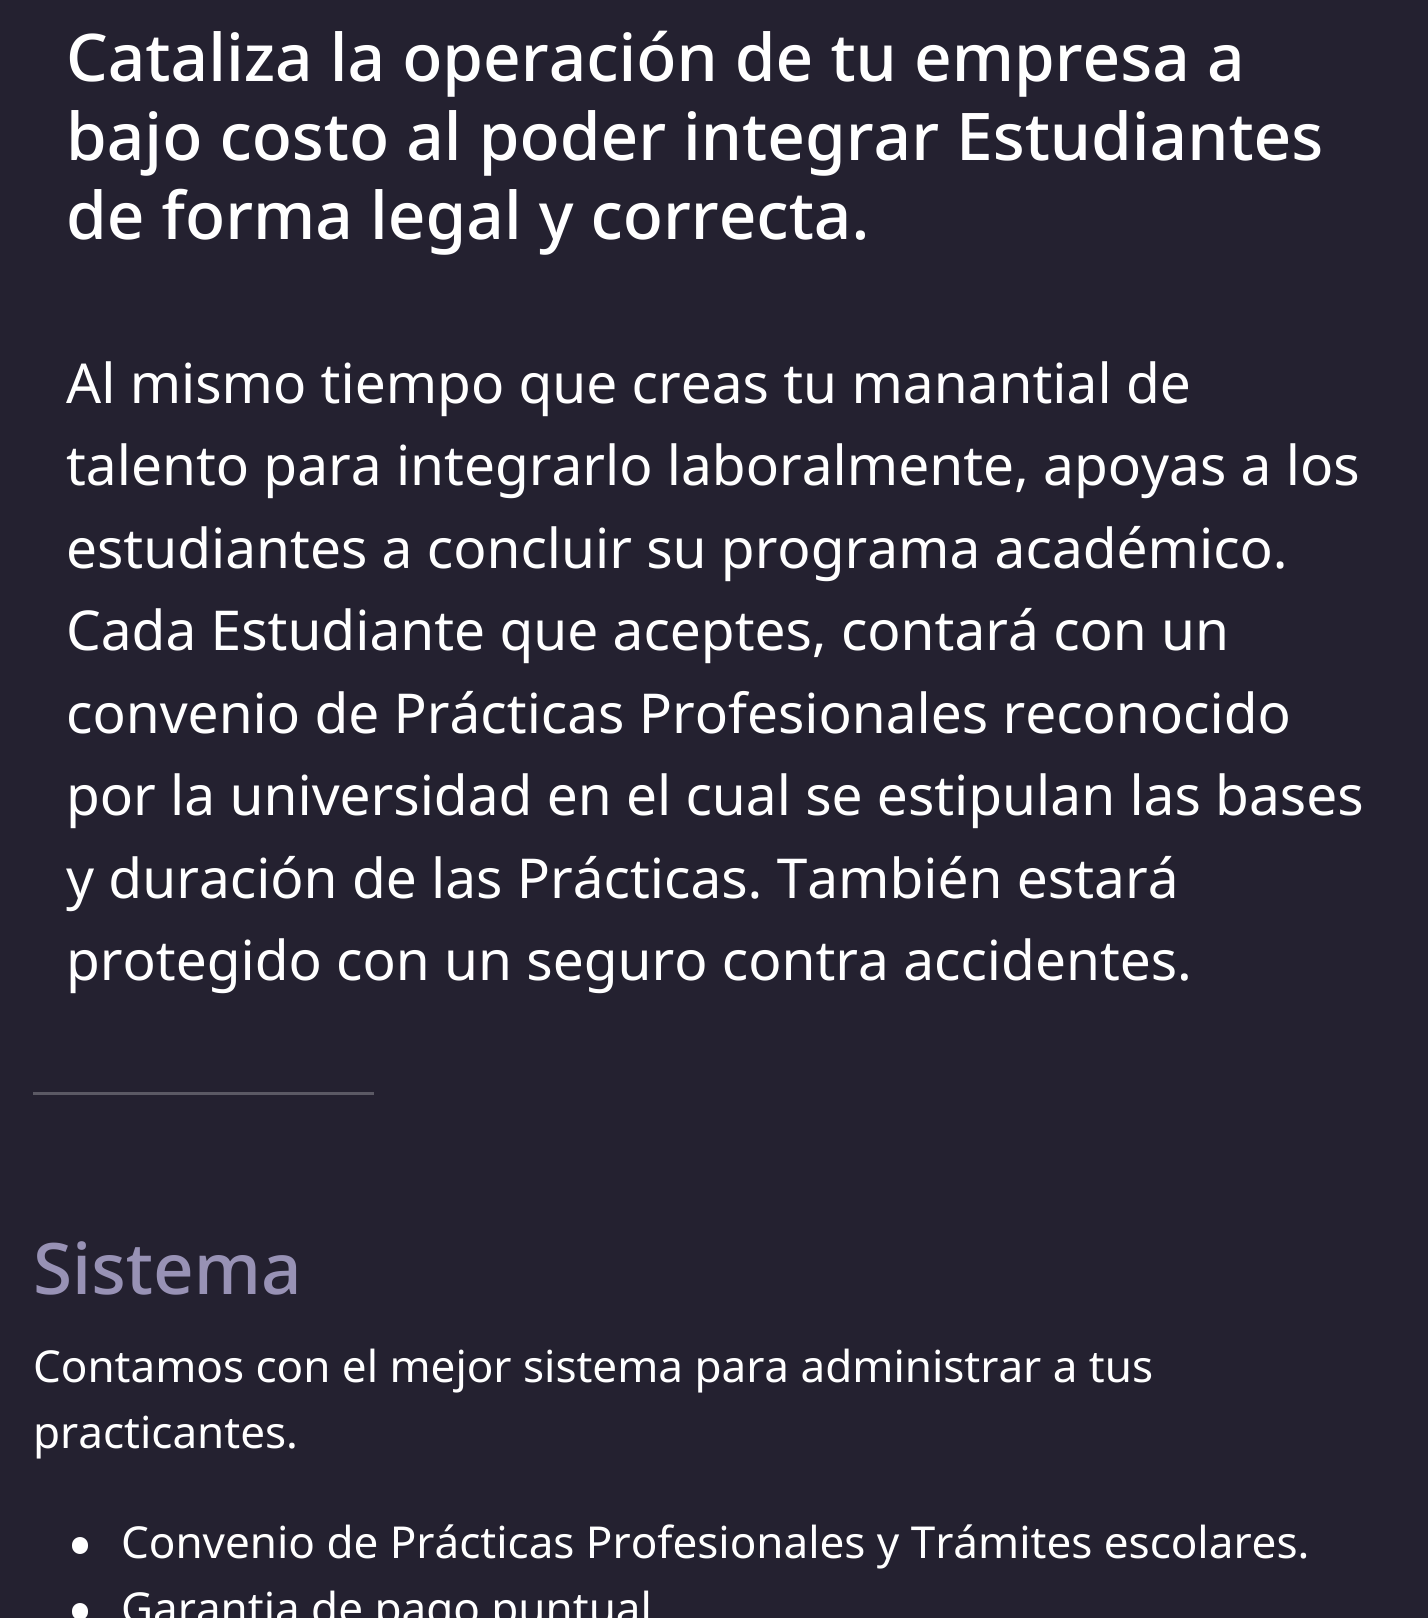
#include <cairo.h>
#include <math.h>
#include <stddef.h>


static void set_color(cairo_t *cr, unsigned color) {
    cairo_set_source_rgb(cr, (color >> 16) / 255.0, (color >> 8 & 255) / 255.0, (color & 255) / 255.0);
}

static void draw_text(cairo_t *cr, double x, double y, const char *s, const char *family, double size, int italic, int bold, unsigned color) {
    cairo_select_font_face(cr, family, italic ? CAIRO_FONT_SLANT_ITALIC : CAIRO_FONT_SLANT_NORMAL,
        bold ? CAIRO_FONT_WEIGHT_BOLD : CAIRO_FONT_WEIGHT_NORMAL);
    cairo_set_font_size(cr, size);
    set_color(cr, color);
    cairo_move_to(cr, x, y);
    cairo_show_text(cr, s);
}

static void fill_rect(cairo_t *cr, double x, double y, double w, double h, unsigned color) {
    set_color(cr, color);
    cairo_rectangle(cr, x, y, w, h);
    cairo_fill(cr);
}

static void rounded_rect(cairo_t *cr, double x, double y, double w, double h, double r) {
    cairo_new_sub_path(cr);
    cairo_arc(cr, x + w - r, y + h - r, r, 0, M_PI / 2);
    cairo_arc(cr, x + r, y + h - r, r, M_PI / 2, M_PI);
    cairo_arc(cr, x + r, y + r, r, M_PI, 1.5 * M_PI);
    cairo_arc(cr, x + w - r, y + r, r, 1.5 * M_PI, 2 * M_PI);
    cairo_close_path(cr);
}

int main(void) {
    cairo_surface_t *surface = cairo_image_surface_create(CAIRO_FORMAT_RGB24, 1428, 1618);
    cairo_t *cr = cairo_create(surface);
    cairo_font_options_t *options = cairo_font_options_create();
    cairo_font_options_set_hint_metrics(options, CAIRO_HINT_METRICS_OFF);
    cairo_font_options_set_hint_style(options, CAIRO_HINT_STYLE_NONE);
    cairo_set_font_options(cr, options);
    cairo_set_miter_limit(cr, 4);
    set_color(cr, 0x242130);
    cairo_paint(cr);
    draw_text(cr, 66, 81, "Cataliza la operación de tu empresa a", "Noto Sans Medium", 65.75, 0, 0, 0xFFFFFF);
    draw_text(cr, 66, 160, "bajo costo al poder integrar Estudiantes", "Noto Sans Medium", 65.75, 0, 0, 0xFFFFFF);
    draw_text(cr, 66, 239, "de forma legal y correcta.", "Noto Sans Medium", 65.75, 0, 0, 0xFFFFFF);
    draw_text(cr, 66, 403, "Al mismo tiempo que creas tu manantial de", "Noto Sans", 55, 0, 0, 0xFFFFFF);
    draw_text(cr, 66, 485, "talento para integrarlo laboralmente, apoyas a los", "Noto Sans", 55, 0, 0, 0xFFFFFF);
    draw_text(cr, 66, 568, "estudiantes a concluir su programa académico.", "Noto Sans", 55, 0, 0, 0xFFFFFF);
    draw_text(cr, 66, 650, "Cada Estudiante que aceptes, contará con un", "Noto Sans", 55, 0, 0, 0xFFFFFF);
    draw_text(cr, 66, 733, "convenio de Prácticas Profesionales reconocido", "Noto Sans", 55, 0, 0, 0xFFFFFF);
    draw_text(cr, 66, 815, "por la universidad en el cual se estipulan las bases", "Noto Sans", 55, 0, 0, 0xFFFFFF);
    draw_text(cr, 66, 898, "y duración de las Prácticas. También estará", "Noto Sans", 55, 0, 0, 0xFFFFFF);
    draw_text(cr, 66, 980, "protegido con un seguro contra accidentes.", "Noto Sans", 55, 0, 0, 0xFFFFFF);
    fill_rect(cr, 33, 1092, 341, 3, 0x5B5964);
    draw_text(cr, 33, 1294, "Sistema", "Noto Sans Medium", 71, 0, 0, 0x9892B5);
    draw_text(cr, 33, 1382, "Contamos con el mejor sistema para administrar a tus", "Noto Sans", 44, 0, 0, 0xFFFFFF);
    draw_text(cr, 33, 1448, "practicantes.", "Noto Sans", 44, 0, 0, 0xFFFFFF);
    rounded_rect(cr, 72, 1537, 16, 17, 8);
    cairo_fill(cr);
    draw_text(cr, 121, 1558, "Convenio de Prácticas Profesionales y Trámites escolares.", "Noto Sans", 44, 0, 0, 0xFFFFFF);
    rounded_rect(cr, 72, 1603, 16, 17, 8);
    cairo_fill(cr);
    draw_text(cr, 121, 1624, "Garantia de pago puntual", "Noto Sans", 44, 0, 0, 0xFFFFFF);
    cairo_surface_write_to_png(surface, "output.png");
    cairo_font_options_destroy(options);
    cairo_destroy(cr);
    cairo_surface_destroy(surface);
    return 0;
}
